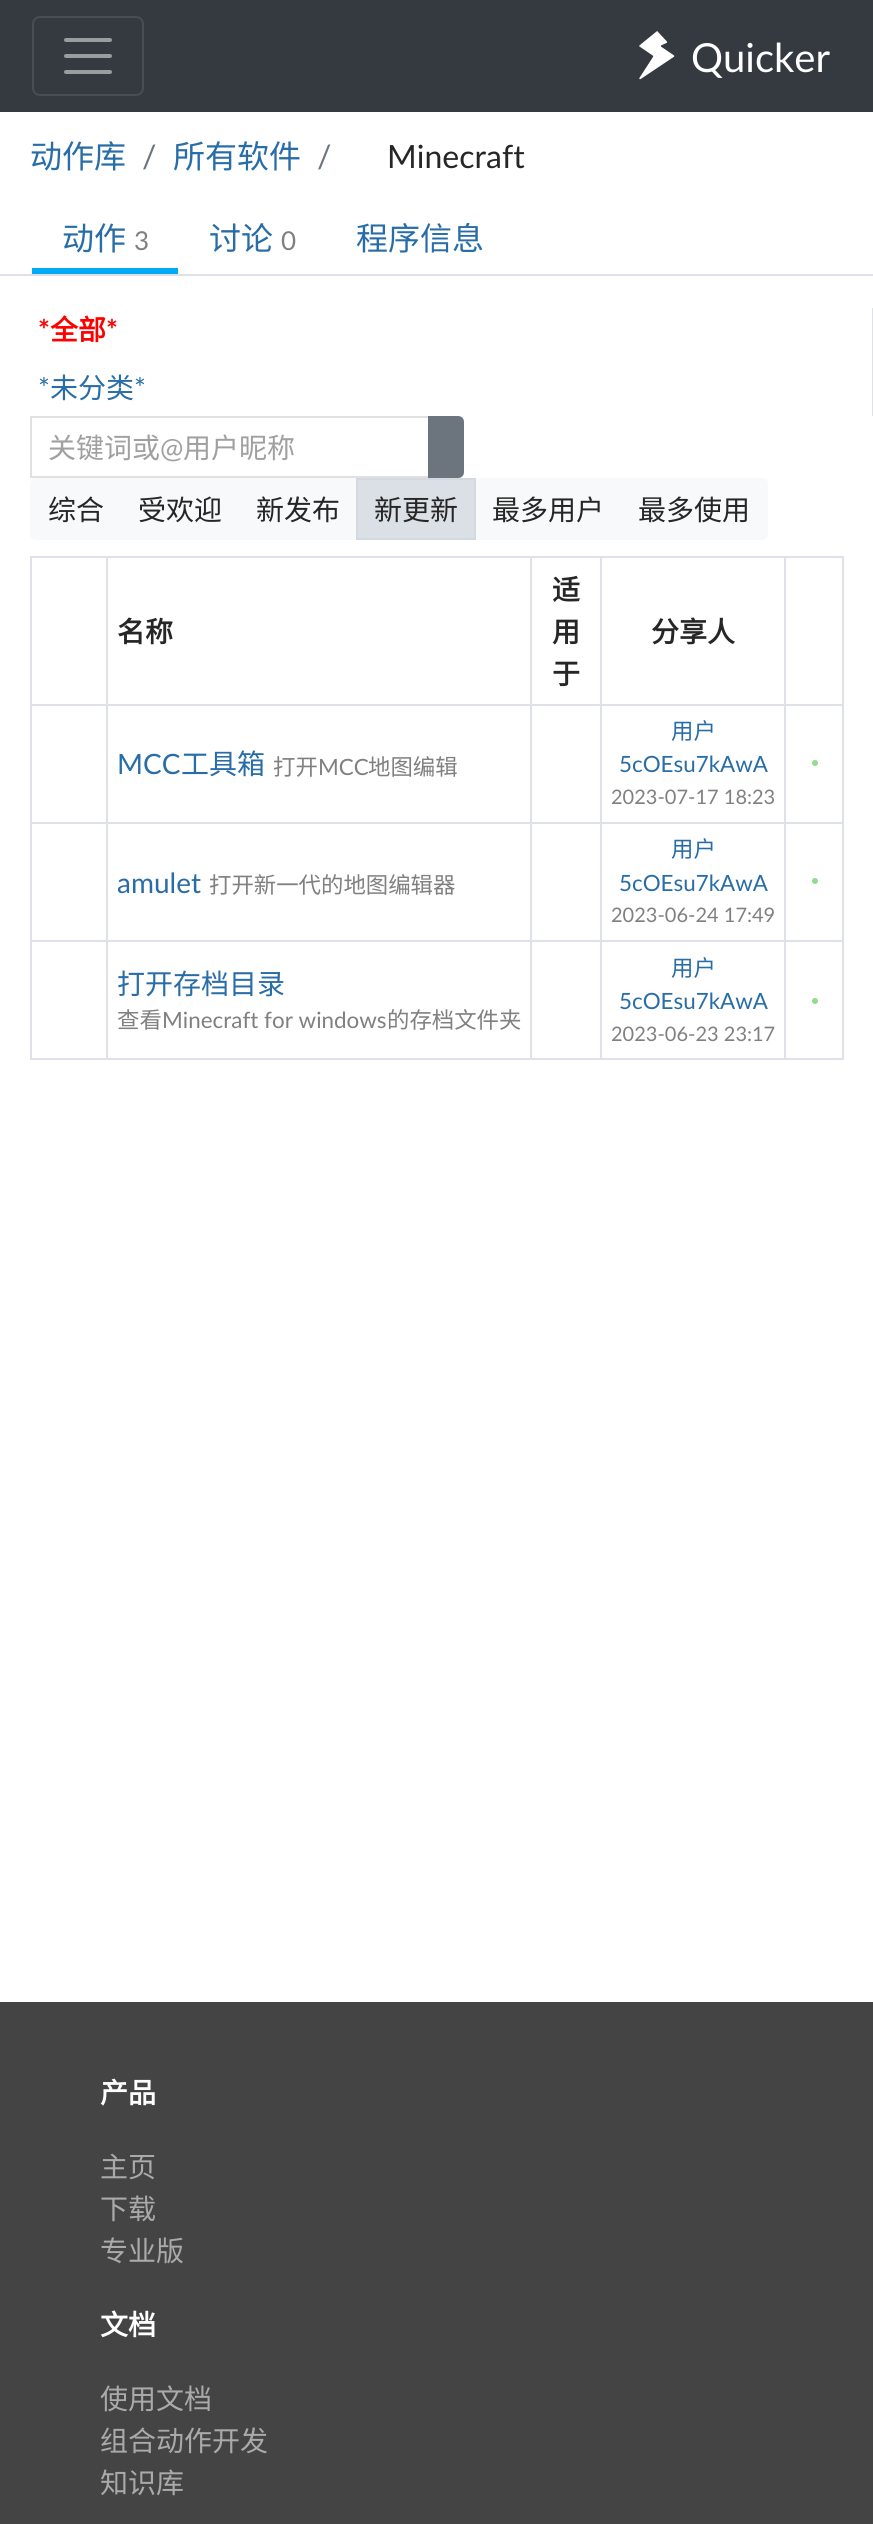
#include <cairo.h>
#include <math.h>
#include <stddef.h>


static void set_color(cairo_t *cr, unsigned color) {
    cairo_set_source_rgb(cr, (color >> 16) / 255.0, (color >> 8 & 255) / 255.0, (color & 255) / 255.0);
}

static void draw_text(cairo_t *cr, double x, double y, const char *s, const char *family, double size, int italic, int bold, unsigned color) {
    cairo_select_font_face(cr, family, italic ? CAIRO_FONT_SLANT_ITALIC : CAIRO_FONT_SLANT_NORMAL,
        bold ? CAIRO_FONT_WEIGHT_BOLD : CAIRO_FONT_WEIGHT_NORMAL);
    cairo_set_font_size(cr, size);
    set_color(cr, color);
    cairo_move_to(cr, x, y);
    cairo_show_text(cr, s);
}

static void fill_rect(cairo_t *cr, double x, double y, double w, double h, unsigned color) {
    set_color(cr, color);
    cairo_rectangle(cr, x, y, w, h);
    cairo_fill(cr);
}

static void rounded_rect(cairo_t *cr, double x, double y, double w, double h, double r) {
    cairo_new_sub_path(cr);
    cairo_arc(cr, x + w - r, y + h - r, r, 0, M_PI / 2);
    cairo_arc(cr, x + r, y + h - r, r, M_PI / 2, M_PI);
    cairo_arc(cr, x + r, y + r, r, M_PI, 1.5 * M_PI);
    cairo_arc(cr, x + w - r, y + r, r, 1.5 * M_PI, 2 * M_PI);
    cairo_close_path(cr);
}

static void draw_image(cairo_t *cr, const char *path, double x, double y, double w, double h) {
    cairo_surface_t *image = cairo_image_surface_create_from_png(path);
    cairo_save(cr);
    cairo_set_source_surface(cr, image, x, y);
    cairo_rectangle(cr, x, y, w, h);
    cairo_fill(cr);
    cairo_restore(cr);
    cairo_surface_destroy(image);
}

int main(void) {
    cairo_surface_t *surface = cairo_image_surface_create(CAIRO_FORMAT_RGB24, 873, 2524);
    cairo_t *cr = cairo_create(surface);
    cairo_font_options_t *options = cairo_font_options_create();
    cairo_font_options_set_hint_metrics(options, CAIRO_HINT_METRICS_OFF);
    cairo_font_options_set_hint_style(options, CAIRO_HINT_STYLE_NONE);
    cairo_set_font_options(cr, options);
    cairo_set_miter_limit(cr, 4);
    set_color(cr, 0x444444);
    cairo_paint(cr);
    fill_rect(cr, 0, 0, 873, 112, 0x343A40);
    rounded_rect(cr, 33, 17, 110, 78, 7);
    set_color(cr, 0x484E53);
    cairo_stroke(cr);
    cairo_new_path(cr);
    cairo_move_to(cr, 66, 40);
    cairo_line_to(cr, 110, 40);
    cairo_move_to(cr, 66, 56);
    cairo_line_to(cr, 110, 56);
    cairo_move_to(cr, 66, 72);
    cairo_line_to(cr, 110, 72);
    set_color(cr, 0x9A9DA0);
    cairo_set_line_width(cr, 4);
    cairo_set_line_cap(cr, CAIRO_LINE_CAP_ROUND);
    cairo_stroke(cr);
    draw_image(cr, "assets/img1.png", 639, 31, 36, 49);
    draw_text(cr, 691, 72, "Quicker", "Lato", 40, 0, 0, 0xFFFFFF);
    fill_rect(cr, 0, 112, 873, 1890, 0xFFFFFF);
    draw_text(cr, 30, 168, "动作库", "Noto Sans CJK SC", 32, 0, 0, 0x286DA8);
    draw_text(cr, 142, 168, "/", "Lato", 32, 0, 0, 0x6C757D);
    draw_text(cr, 173, 168, "所有软件", "Noto Sans CJK SC", 32, 0, 0, 0x286DA8);
    draw_text(cr, 317, 168, "/", "Lato", 32, 0, 0, 0x6C757D);
    draw_text(cr, 387, 168, "Minecraft", "Lato", 32, 0, 0, 0x262626);
    fill_rect(cr, 0, 274, 873, 2, 0xDEE2E6);
    fill_rect(cr, 32, 268, 146, 6, 0x03A9F4);
    draw_text(cr, 62, 250, "动作", "Noto Sans CJK SC", 32, 0, 0, 0x286DA8);
    draw_text(cr, 134, 250, "3", "Lato", 26, 0, 0, 0x808080);
    draw_text(cr, 209, 250, "讨论", "Noto Sans CJK SC", 32, 0, 0, 0x286DA8);
    draw_text(cr, 281, 250, "0", "Lato", 26, 0, 0, 0x808080);
    draw_text(cr, 356, 250, "程序信息", "Noto Sans CJK SC", 32, 0, 0, 0x286DA8);
    fill_rect(cr, 872, 308, 1, 108, 0xDEE2E6);
    draw_text(cr, 38, 340, "*", "Lato", 28, 0, 1, 0xFF0000);
    draw_text(cr, 50, 340, "全部", "Noto Sans CJK SC", 28, 0, 1, 0xFF0000);
    draw_text(cr, 106, 340, "*", "Lato", 28, 0, 1, 0xFF0000);
    draw_text(cr, 38, 398, "*", "Lato", 28, 0, 0, 0x286DA8);
    draw_text(cr, 50, 398, "未分类", "Noto Sans CJK SC", 28, 0, 0, 0x286DA8);
    draw_text(cr, 134, 398, "*", "Lato", 28, 0, 0, 0x286DA8);
    cairo_rectangle(cr, 31, 417, 398, 60);
    set_color(cr, 0xE0E0E0);
    cairo_set_line_width(cr, 2);
    cairo_set_line_cap(cr, CAIRO_LINE_CAP_BUTT);
    cairo_stroke(cr);
    draw_text(cr, 48, 458, "关键词或", "Noto Sans CJK SC", 28, 0, 0, 0xA0A0A0);
    draw_text(cr, 160, 458, "@", "Lato", 28, 0, 0, 0xA0A0A0);
    draw_text(cr, 183, 458, "用户昵称", "Noto Sans CJK SC", 28, 0, 0, 0xA0A0A0);
    set_color(cr, 0x6C757D);
    cairo_new_path(cr);
    cairo_move_to(cr, 429, 417);
    cairo_line_to(cr, 458, 417);
    cairo_curve_to(cr, 461, 417, 463, 419, 463, 422);
    cairo_line_to(cr, 463, 472);
    cairo_curve_to(cr, 463, 475, 461, 477, 458, 477);
    cairo_line_to(cr, 429, 477);
    cairo_close_path(cr);
    cairo_fill_preserve(cr);
    cairo_stroke(cr);
    set_color(cr, 0xF8F9FA);
    cairo_new_path(cr);
    cairo_move_to(cr, 36, 478);
    cairo_line_to(cr, 122, 478);
    cairo_line_to(cr, 122, 540);
    cairo_line_to(cr, 36, 540);
    cairo_curve_to(cr, 32.5, 540, 30, 537.5, 30, 534);
    cairo_line_to(cr, 30, 484);
    cairo_curve_to(cr, 30, 480.5, 32.5, 478, 36, 478);
    cairo_close_path(cr);
    cairo_fill(cr);
    draw_text(cr, 48, 520, "综合", "Noto Sans CJK SC", 28, 0, 0, 0x262626);
    fill_rect(cr, 122, 478, 234, 62, 0xF8F9FA);
    draw_text(cr, 138, 520, "受欢迎", "Noto Sans CJK SC", 28, 0, 0, 0x262626);
    draw_text(cr, 256, 520, "新发布", "Noto Sans CJK SC", 28, 0, 0, 0x262626);
    set_color(cr, 0xDAE0E5);
    cairo_rectangle(cr, 357, 479, 118, 60);
    cairo_fill_preserve(cr);
    set_color(cr, 0xD3D9DF);
    cairo_stroke(cr);
    draw_text(cr, 374, 520, "新更新", "Noto Sans CJK SC", 28, 0, 0, 0x262626);
    fill_rect(cr, 476, 478, 144, 62, 0xF8F9FA);
    draw_text(cr, 492, 520, "最多用户", "Noto Sans CJK SC", 28, 0, 0, 0x262626);
    set_color(cr, 0xF8F9FA);
    cairo_new_path(cr);
    cairo_move_to(cr, 620, 478);
    cairo_line_to(cr, 762, 478);
    cairo_curve_to(cr, 765.5, 478, 768, 480.5, 768, 484);
    cairo_line_to(cr, 768, 534);
    cairo_curve_to(cr, 768, 537.5, 765.5, 540, 762, 540);
    cairo_line_to(cr, 620, 540);
    cairo_close_path(cr);
    cairo_fill(cr);
    draw_text(cr, 638, 520, "最多使用", "Noto Sans CJK SC", 28, 0, 0, 0x262626);
    fill_rect(cr, 30, 556, 814, 2, 0xDEE2E6);
    fill_rect(cr, 842, 556, 2, 504, 0xDEE2E6);
    fill_rect(cr, 30, 1058, 814, 2, 0xDEE2E6);
    fill_rect(cr, 30, 556, 2, 504, 0xDEE2E6);
    fill_rect(cr, 784, 704, 60, 2, 0xDEE2E6);
    fill_rect(cr, 784, 822, 60, 2, 0xDEE2E6);
    fill_rect(cr, 784, 940, 60, 2, 0xDEE2E6);
    fill_rect(cr, 784, 940, 2, 120, 0xDEE2E6);
    fill_rect(cr, 600, 940, 186, 2, 0xDEE2E6);
    fill_rect(cr, 784, 822, 2, 120, 0xDEE2E6);
    fill_rect(cr, 600, 822, 186, 2, 0xDEE2E6);
    fill_rect(cr, 784, 704, 2, 120, 0xDEE2E6);
    fill_rect(cr, 600, 704, 186, 2, 0xDEE2E6);
    fill_rect(cr, 600, 940, 2, 120, 0xDEE2E6);
    fill_rect(cr, 530, 940, 72, 2, 0xDEE2E6);
    fill_rect(cr, 600, 822, 2, 120, 0xDEE2E6);
    fill_rect(cr, 530, 822, 72, 2, 0xDEE2E6);
    fill_rect(cr, 600, 704, 2, 120, 0xDEE2E6);
    fill_rect(cr, 530, 704, 72, 2, 0xDEE2E6);
    fill_rect(cr, 530, 940, 2, 120, 0xDEE2E6);
    fill_rect(cr, 106, 940, 426, 2, 0xDEE2E6);
    fill_rect(cr, 530, 822, 2, 120, 0xDEE2E6);
    fill_rect(cr, 106, 822, 426, 2, 0xDEE2E6);
    fill_rect(cr, 530, 704, 2, 120, 0xDEE2E6);
    fill_rect(cr, 106, 704, 426, 2, 0xDEE2E6);
    fill_rect(cr, 106, 940, 2, 120, 0xDEE2E6);
    fill_rect(cr, 30, 940, 78, 2, 0xDEE2E6);
    fill_rect(cr, 106, 822, 2, 120, 0xDEE2E6);
    fill_rect(cr, 30, 822, 78, 2, 0xDEE2E6);
    fill_rect(cr, 106, 704, 2, 120, 0xDEE2E6);
    fill_rect(cr, 30, 704, 78, 2, 0xDEE2E6);
    fill_rect(cr, 106, 556, 2, 150, 0xDEE2E6);
    draw_text(cr, 117, 642, "名称", "Noto Sans CJK SC", 28, 0, 1, 0x262626);
    fill_rect(cr, 530, 556, 2, 150, 0xDEE2E6);
    draw_text(cr, 552, 600, "适", "Noto Sans CJK SC", 28, 0, 1, 0x262626);
    draw_text(cr, 552, 642, "用", "Noto Sans CJK SC", 28, 0, 1, 0x262626);
    draw_text(cr, 552, 684, "于", "Noto Sans CJK SC", 28, 0, 1, 0x262626);
    fill_rect(cr, 784, 556, 2, 150, 0xDEE2E6);
    fill_rect(cr, 600, 556, 2, 150, 0xDEE2E6);
    draw_text(cr, 651, 642, "分享人", "Noto Sans CJK SC", 28, 0, 1, 0x262626);
    draw_text(cr, 117, 774, "MCC", "Lato", 28, 0, 0, 0x286DA8);
    draw_text(cr, 181, 774, "工具箱", "Noto Sans CJK SC", 28, 0, 0, 0x286DA8);
    draw_text(cr, 273, 775, "打开", "Noto Sans CJK SC", 22.4, 0, 0, 0x808080);
    draw_text(cr, 318, 775, "MCC", "Lato", 22.4, 0, 0, 0x808080);
    draw_text(cr, 368, 775, "地图编辑", "Noto Sans CJK SC", 22.4, 0, 0, 0x808080);
    draw_text(cr, 671, 739, "用户", "Noto Sans CJK SC", 22.4, 0, 0, 0x286DA8);
    draw_text(cr, 619, 772, "5cOEsu7kAwA", "Lato", 22.4, 0, 0, 0x286DA8);
    draw_text(cr, 611, 804, "2023-07-17 18:23", "Lato", 20, 0, 0, 0x808080);
    set_color(cr, 0x90DD90);
    cairo_new_path(cr);
    cairo_arc(cr, 815, 763, 3, 0, 2 * M_PI);
    cairo_fill(cr);
    draw_text(cr, 117, 893, "amulet", "Lato", 28, 0, 0, 0x286DA8);
    draw_text(cr, 209, 893, "打开新一代的地图编辑器", "Noto Sans CJK SC", 22.4, 0, 0, 0x808080);
    draw_text(cr, 671, 857, "用户", "Noto Sans CJK SC", 22.4, 0, 0, 0x286DA8);
    draw_text(cr, 619, 891, "5cOEsu7kAwA", "Lato", 22.4, 0, 0, 0x286DA8);
    draw_text(cr, 611, 922, "2023-06-24 17:49", "Lato", 20, 0, 0, 0x808080);
    set_color(cr, 0x90DD90);
    cairo_new_path(cr);
    cairo_arc(cr, 815, 881, 3, 0, 2 * M_PI);
    cairo_fill(cr);
    draw_text(cr, 117, 994, "打开存档目录", "Noto Sans CJK SC", 28, 0, 0, 0x286DA8);
    draw_text(cr, 117, 1028, "查看", "Noto Sans CJK SC", 22.4, 0, 0, 0x808080);
    draw_text(cr, 162, 1028, "Minecraft for windows", "Lato", 22.4, 0, 0, 0x808080);
    draw_text(cr, 387, 1028, "的存档文件夹", "Noto Sans CJK SC", 22.4, 0, 0, 0x808080);
    draw_text(cr, 671, 976, "用户", "Noto Sans CJK SC", 22.4, 0, 0, 0x286DA8);
    draw_text(cr, 619, 1009, "5cOEsu7kAwA", "Lato", 22.4, 0, 0, 0x286DA8);
    draw_text(cr, 611, 1041, "2023-06-23 23:17", "Lato", 20, 0, 0, 0x808080);
    set_color(cr, 0x90DD90);
    cairo_new_path(cr);
    cairo_arc(cr, 815, 1001, 3, 0, 2 * M_PI);
    cairo_fill(cr);
    draw_text(cr, 100, 2103, "产品", "Noto Sans CJK SC", 28, 0, 1, 0xFFFFFF);
    draw_text(cr, 100, 2177, "主页", "Noto Sans CJK SC", 28, 0, 0, 0xAAAAAA);
    draw_text(cr, 100, 2219, "下载", "Noto Sans CJK SC", 28, 0, 0, 0xAAAAAA);
    draw_text(cr, 100, 2261, "专业版", "Noto Sans CJK SC", 28, 0, 0, 0xAAAAAA);
    draw_text(cr, 100, 2335, "文档", "Noto Sans CJK SC", 28, 0, 1, 0xFFFFFF);
    draw_text(cr, 100, 2409, "使用文档", "Noto Sans CJK SC", 28, 0, 0, 0xAAAAAA);
    draw_text(cr, 100, 2451, "组合动作开发", "Noto Sans CJK SC", 28, 0, 0, 0xAAAAAA);
    draw_text(cr, 100, 2493, "知识库", "Noto Sans CJK SC", 28, 0, 0, 0xAAAAAA);
    cairo_surface_write_to_png(surface, "output.png");
    cairo_font_options_destroy(options);
    cairo_destroy(cr);
    cairo_surface_destroy(surface);
    return 0;
}
